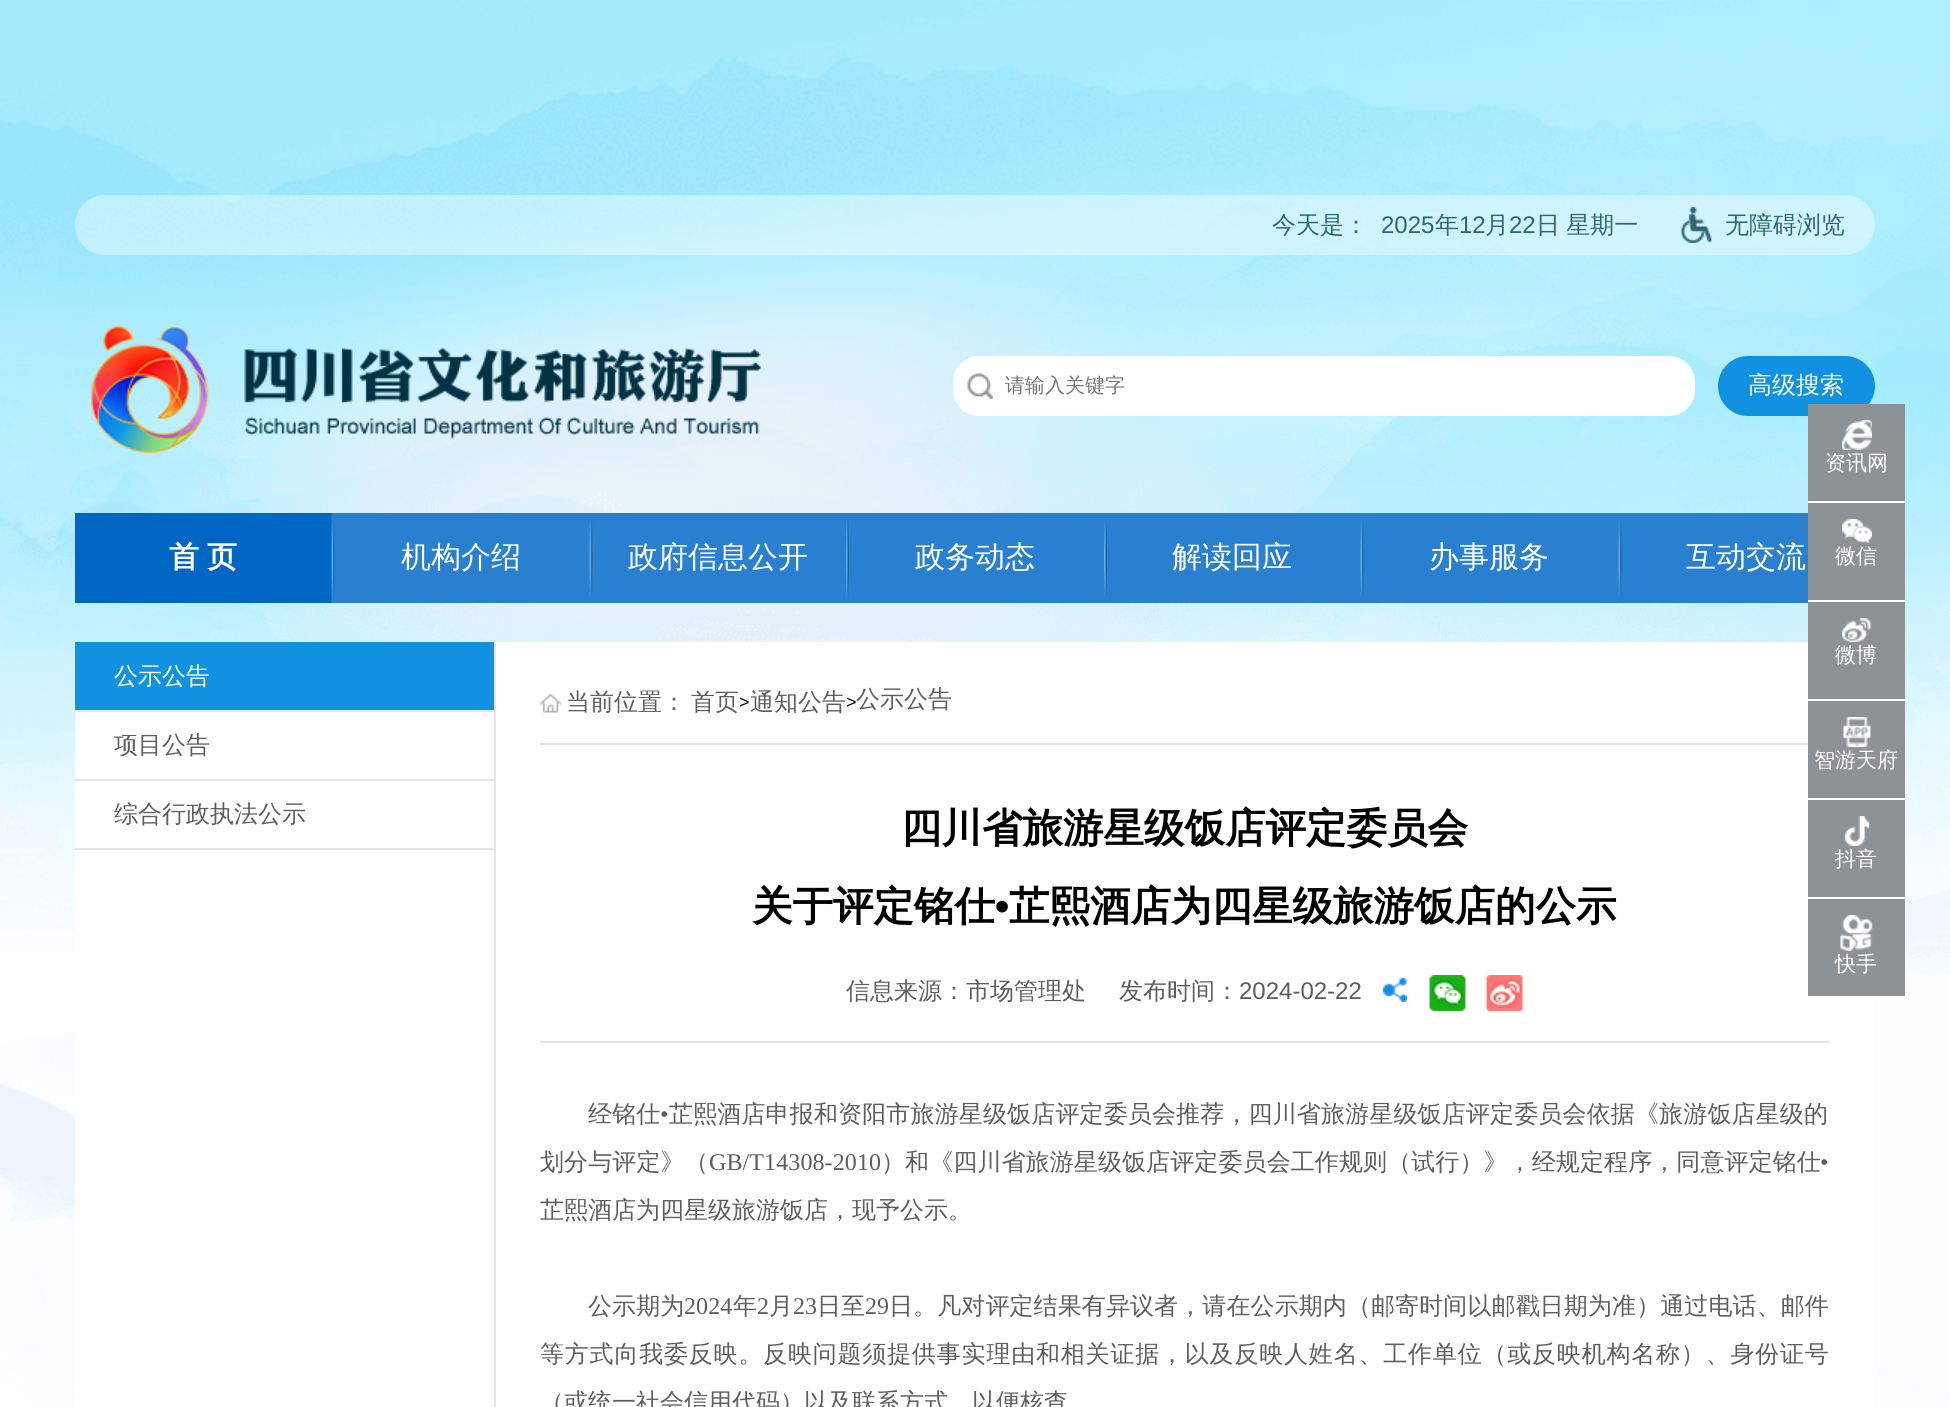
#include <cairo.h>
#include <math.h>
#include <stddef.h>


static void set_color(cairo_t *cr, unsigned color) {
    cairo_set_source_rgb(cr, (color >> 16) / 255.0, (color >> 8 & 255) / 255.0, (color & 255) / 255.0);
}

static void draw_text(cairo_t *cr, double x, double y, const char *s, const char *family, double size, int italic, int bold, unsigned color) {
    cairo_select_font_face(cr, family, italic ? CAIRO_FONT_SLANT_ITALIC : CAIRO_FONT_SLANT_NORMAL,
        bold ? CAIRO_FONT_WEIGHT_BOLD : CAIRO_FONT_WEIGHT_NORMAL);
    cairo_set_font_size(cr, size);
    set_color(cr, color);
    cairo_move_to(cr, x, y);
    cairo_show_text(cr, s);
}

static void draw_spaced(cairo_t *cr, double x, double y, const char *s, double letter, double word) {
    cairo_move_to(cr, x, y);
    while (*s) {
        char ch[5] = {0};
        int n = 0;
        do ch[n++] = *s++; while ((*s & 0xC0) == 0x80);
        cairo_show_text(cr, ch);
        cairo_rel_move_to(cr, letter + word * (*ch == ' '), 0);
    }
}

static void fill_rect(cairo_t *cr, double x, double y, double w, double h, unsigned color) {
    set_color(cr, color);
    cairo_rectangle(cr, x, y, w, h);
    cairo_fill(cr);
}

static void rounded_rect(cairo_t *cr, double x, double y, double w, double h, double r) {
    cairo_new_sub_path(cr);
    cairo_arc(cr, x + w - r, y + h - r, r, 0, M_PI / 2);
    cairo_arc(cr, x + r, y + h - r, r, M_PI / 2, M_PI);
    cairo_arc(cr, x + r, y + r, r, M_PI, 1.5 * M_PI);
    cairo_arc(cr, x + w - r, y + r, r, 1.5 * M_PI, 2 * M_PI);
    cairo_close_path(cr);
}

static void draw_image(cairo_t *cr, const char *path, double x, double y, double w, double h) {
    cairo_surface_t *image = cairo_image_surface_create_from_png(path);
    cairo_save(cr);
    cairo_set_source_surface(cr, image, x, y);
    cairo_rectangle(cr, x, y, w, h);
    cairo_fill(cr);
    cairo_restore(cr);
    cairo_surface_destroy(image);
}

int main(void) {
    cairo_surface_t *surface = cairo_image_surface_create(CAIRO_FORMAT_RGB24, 1950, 1407);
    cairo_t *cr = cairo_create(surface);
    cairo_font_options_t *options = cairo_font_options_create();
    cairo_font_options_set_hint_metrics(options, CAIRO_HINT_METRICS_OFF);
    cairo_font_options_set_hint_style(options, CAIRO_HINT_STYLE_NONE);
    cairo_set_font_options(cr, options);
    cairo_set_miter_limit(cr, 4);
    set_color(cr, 0xFFFFFF);
    cairo_paint(cr);
    draw_image(cr, "assets/img1.png", 0, 0, 1950, 1407);
    cairo_set_source_rgba(cr, 1, 1, 1, 0.4);
    rounded_rect(cr, 75, 195, 1800, 60, 30);
    cairo_fill(cr);
    draw_text(cr, 1272, 233, "今天是：", "WenQuanYi Zen Hei Medium", 24, 0, 0, 0x2E6675);
    draw_text(cr, 1381, 233, "2025", "Liberation Sans", 24, 0, 0, 0x2E6675);
    draw_text(cr, 1435, 233, "年", "WenQuanYi Zen Hei Medium", 24, 0, 0, 0x2E6675);
    draw_text(cr, 1459, 233, "12", "Liberation Sans", 24, 0, 0, 0x2E6675);
    draw_text(cr, 1485, 233, "月", "WenQuanYi Zen Hei Medium", 24, 0, 0, 0x2E6675);
    draw_text(cr, 1509, 233, "22", "Liberation Sans", 24, 0, 0, 0x2E6675);
    cairo_select_font_face(cr, "WenQuanYi Zen Hei Medium", CAIRO_FONT_SLANT_NORMAL, CAIRO_FONT_WEIGHT_NORMAL);
    draw_spaced(cr, 1536, 233, "日 星期一", 0, -1);
    draw_image(cr, "assets/img2.png", 1681, 207, 31, 36);
    draw_text(cr, 1725, 233, "无障碍浏览", "WenQuanYi Zen Hei Medium", 24, 0, 0, 0x2E6675);
    draw_image(cr, "assets/img3.png", 91, 325, 671, 129);
    set_color(cr, 0xFFFFFF);
    rounded_rect(cr, 953, 356, 742, 60, 26);
    cairo_fill(cr);
    draw_image(cr, "assets/img4.png", 967, 373, 26, 26);
    draw_text(cr, 1005, 392, "请输入关键字", "WenQuanYi Zen Hei Medium", 20, 0, 0, 0x757575);
    set_color(cr, 0x1192E0);
    rounded_rect(cr, 1718, 356, 157, 60, 30);
    cairo_fill(cr);
    draw_text(cr, 1748, 393, "高级搜索", "WenQuanYi Zen Hei Medium", 24, 0, 0, 0xFFFFFF);
    fill_rect(cr, 75, 513, 257, 90, 0x0066C3);
    cairo_select_font_face(cr, "WenQuanYi Zen Hei", CAIRO_FONT_SLANT_NORMAL, CAIRO_FONT_WEIGHT_BOLD);
    cairo_set_font_size(cr, 30);
    set_color(cr, 0xFFFFFF);
    draw_spaced(cr, 169, 567, "首 页", 0, -1);
    fill_rect(cr, 334, 513, 1474, 90, 0x2A80D0);
    draw_image(cr, "assets/img5.png", 331, 513, 4, 90);
    draw_text(cr, 401, 567, "机构介绍", "WenQuanYi Zen Hei Medium", 30, 0, 0, 0xFFFFFF);
    draw_image(cr, "assets/img6.png", 589, 520, 4, 77);
    draw_text(cr, 628, 567, "政府信息公开", "WenQuanYi Zen Hei Medium", 30, 0, 0, 0xFFFFFF);
    draw_image(cr, "assets/img7.png", 846, 519, 3, 80);
    draw_text(cr, 915, 567, "政务动态", "WenQuanYi Zen Hei Medium", 30, 0, 0, 0xFFFFFF);
    draw_image(cr, "assets/img8.png", 1104, 519, 3, 80);
    draw_text(cr, 1172, 567, "解读回应", "WenQuanYi Zen Hei Medium", 30, 0, 0, 0xFFFFFF);
    draw_image(cr, "assets/img6.png", 1360, 520, 4, 77);
    draw_text(cr, 1429, 567, "办事服务", "WenQuanYi Zen Hei Medium", 30, 0, 0, 0xFFFFFF);
    draw_image(cr, "assets/img6.png", 1618, 520, 4, 77);
    draw_text(cr, 1686, 567, "互动交流", "WenQuanYi Zen Hei Medium", 30, 0, 0, 0xFFFFFF);
    fill_rect(cr, 1808, 404, 97, 97, 0x8D9296);
    draw_image(cr, "assets/img9.png", 1842, 420, 30, 30);
    draw_text(cr, 1825, 470, "资讯网", "WenQuanYi Zen Hei Medium", 21, 0, 0, 0xFFFFFF);
    fill_rect(cr, 1808, 503, 97, 97, 0x8D9296);
    fill_rect(cr, 1808, 501, 97, 2, 0xFFFFFF);
    draw_image(cr, "assets/img10.png", 1842, 519, 30, 24);
    draw_text(cr, 1835, 563, "微信", "WenQuanYi Zen Hei Medium", 21, 0, 0, 0xFFFFFF);
    fill_rect(cr, 75, 642, 1800, 765, 0xFFFFFF);
    fill_rect(cr, 1808, 602, 97, 97, 0x8D9296);
    fill_rect(cr, 1808, 600, 97, 2, 0xFFFFFF);
    draw_image(cr, "assets/img11.png", 1842, 618, 29, 24);
    draw_text(cr, 1835, 662, "微博", "WenQuanYi Zen Hei Medium", 21, 0, 0, 0xFFFFFF);
    fill_rect(cr, 1808, 701, 97, 97, 0x8D9296);
    fill_rect(cr, 1875, 699, 30, 2, 0xFFFFFF);
    draw_image(cr, "assets/img12.png", 1843, 717, 28, 30);
    draw_text(cr, 1814, 767, "智游天府", "WenQuanYi Zen Hei Medium", 21, 0, 0, 0xFFFFFF);
    fill_rect(cr, 1808, 800, 97, 97, 0x8D9296);
    fill_rect(cr, 1875, 798, 30, 2, 0xFFFFFF);
    draw_image(cr, "assets/img13.png", 1844, 816, 26, 30);
    draw_text(cr, 1835, 866, "抖音", "WenQuanYi Zen Hei Medium", 21, 0, 0, 0xFFFFFF);
    fill_rect(cr, 1808, 899, 97, 97, 0x8D9296);
    fill_rect(cr, 1875, 897, 30, 2, 0xFFFFFF);
    draw_image(cr, "assets/img14.png", 1840, 915, 33, 36);
    draw_text(cr, 1835, 971, "快手", "WenQuanYi Zen Hei Medium", 21, 0, 0, 0xFFFFFF);
    fill_rect(cr, 75, 642, 419, 68, 0x1192E0);
    fill_rect(cr, 75, 710, 419, 2, 0xE5E5E5);
    draw_text(cr, 114, 684, "公示公告", "WenQuanYi Zen Hei Medium", 24, 0, 0, 0xFFFFFF);
    fill_rect(cr, 75, 779, 419, 2, 0xE5E5E5);
    draw_text(cr, 114, 753, "项目公告", "WenQuanYi Zen Hei Medium", 24, 0, 0, 0x5D5D5D);
    fill_rect(cr, 75, 848, 419, 2, 0xE5E5E5);
    draw_text(cr, 114, 822, "综合行政执法公示", "WenQuanYi Zen Hei Medium", 24, 0, 0, 0x5D5D5D);
    fill_rect(cr, 494, 642, 2, 765, 0xE5E5E5);
    fill_rect(cr, 540, 743, 1268, 2, 0xE5E5E5);
    draw_image(cr, "assets/img15.png", 540, 694, 21, 19);
    draw_text(cr, 566, 710, "当前位置：", "WenQuanYi Zen Hei Medium", 24, 0, 0, 0x5D5D5D);
    draw_text(cr, 691, 710, "首页", "WenQuanYi Zen Hei Medium", 24, 0, 0, 0x5D5D5D);
    draw_text(cr, 739, 708, ">", "Liberation Sans", 18, 0, 0, 0x000000);
    draw_text(cr, 750, 710, "通知公告", "WenQuanYi Zen Hei Medium", 24, 0, 0, 0x5D5D5D);
    draw_text(cr, 846, 708, ">", "Liberation Sans", 18, 0, 0, 0x000000);
    draw_text(cr, 856, 707, "公示公告", "WenQuanYi Zen Hei Medium", 24, 0, 0, 0x5D5D5D);
    draw_text(cr, 901, 842, "四川省旅游星级饭店评定委员会", "WenQuanYi Zen Hei", 40.5, 0, 1, 0x000000);
    draw_text(cr, 752, 920, "关于评定铭仕", "WenQuanYi Zen Hei", 40.5, 0, 1, 0x000000);
    draw_text(cr, 995, 920, "•", "Liberation Sans", 40.5, 0, 1, 0x000000);
    draw_text(cr, 1009, 920, "芷熙酒店为四星级旅游饭店的公示", "WenQuanYi Zen Hei", 40.5, 0, 1, 0x000000);
    fill_rect(cr, 540, 1041, 1289, 2, 0xE5E5E5);
    draw_text(cr, 846, 999, "信息来源：市场管理处", "WenQuanYi Zen Hei Medium", 24, 0, 0, 0x5D5D5D);
    draw_text(cr, 1119, 999, "发布时间：", "WenQuanYi Zen Hei Medium", 24, 0, 0, 0x5D5D5D);
    draw_text(cr, 1239, 999, "2024-02-22", "Liberation Sans", 24, 0, 0, 0x5D5D5D);
    draw_image(cr, "assets/img16.png", 1383, 978, 24, 24);
    draw_image(cr, "assets/img17.png", 1429, 975, 37, 36);
    draw_image(cr, "assets/img18.png", 1486, 975, 37, 36);
    cairo_select_font_face(cr, "WenQuanYi Zen Hei Medium", CAIRO_FONT_SLANT_NORMAL, CAIRO_FONT_WEIGHT_NORMAL);
    draw_spaced(cr, 588, 1122, "经铭仕", 0.15, 0);
    cairo_select_font_face(cr, "Liberation Serif", CAIRO_FONT_SLANT_NORMAL, CAIRO_FONT_WEIGHT_NORMAL);
    draw_spaced(cr, 660, 1122, "•", 0.15, 0);
    cairo_select_font_face(cr, "WenQuanYi Zen Hei Medium", CAIRO_FONT_SLANT_NORMAL, CAIRO_FONT_WEIGHT_NORMAL);
    draw_spaced(cr, 669, 1122, "芷熙酒店申报和资阳市旅游星级饭店评定委员会推荐，四川省旅游星级饭店评定委员会依据《旅游饭店星级的", 0.15, 0);
    draw_spaced(cr, 540, 1170, "划分与评定》（", 0.1, 0);
    cairo_select_font_face(cr, "Liberation Serif", CAIRO_FONT_SLANT_NORMAL, CAIRO_FONT_WEIGHT_NORMAL);
    draw_spaced(cr, 709, 1170, "GB/T14308-2010", 0.1, 0);
    cairo_select_font_face(cr, "WenQuanYi Zen Hei Medium", CAIRO_FONT_SLANT_NORMAL, CAIRO_FONT_WEIGHT_NORMAL);
    draw_spaced(cr, 881, 1170, "）和《四川省旅游星级饭店评定委员会工作规则（试行）》，经规定程序，同意评定铭仕", 0.1, 0);
    cairo_select_font_face(cr, "Liberation Serif", CAIRO_FONT_SLANT_NORMAL, CAIRO_FONT_WEIGHT_NORMAL);
    draw_spaced(cr, 1820, 1170, "•", 0.1, 0);
    draw_text(cr, 540, 1218, "芷熙酒店为四星级旅游饭店，现予公示。", "WenQuanYi Zen Hei Medium", 24, 0, 0, 0x5D5D5D);
    draw_spaced(cr, 588, 1314, "公示期为", 0.1, 0);
    cairo_select_font_face(cr, "Liberation Serif", CAIRO_FONT_SLANT_NORMAL, CAIRO_FONT_WEIGHT_NORMAL);
    draw_spaced(cr, 684, 1314, "2024", 0.1, 0);
    cairo_select_font_face(cr, "WenQuanYi Zen Hei Medium", CAIRO_FONT_SLANT_NORMAL, CAIRO_FONT_WEIGHT_NORMAL);
    draw_spaced(cr, 733, 1314, "年", 0.1, 0);
    cairo_select_font_face(cr, "Liberation Serif", CAIRO_FONT_SLANT_NORMAL, CAIRO_FONT_WEIGHT_NORMAL);
    draw_spaced(cr, 757, 1314, "2", 0.1, 0);
    cairo_select_font_face(cr, "WenQuanYi Zen Hei Medium", CAIRO_FONT_SLANT_NORMAL, CAIRO_FONT_WEIGHT_NORMAL);
    draw_spaced(cr, 769, 1314, "月", 0.1, 0);
    cairo_select_font_face(cr, "Liberation Serif", CAIRO_FONT_SLANT_NORMAL, CAIRO_FONT_WEIGHT_NORMAL);
    draw_spaced(cr, 793, 1314, "23", 0.1, 0);
    cairo_select_font_face(cr, "WenQuanYi Zen Hei Medium", CAIRO_FONT_SLANT_NORMAL, CAIRO_FONT_WEIGHT_NORMAL);
    draw_spaced(cr, 817, 1314, "日至", 0.1, 0);
    cairo_select_font_face(cr, "Liberation Serif", CAIRO_FONT_SLANT_NORMAL, CAIRO_FONT_WEIGHT_NORMAL);
    draw_spaced(cr, 865, 1314, "29", 0.1, 0);
    cairo_select_font_face(cr, "WenQuanYi Zen Hei Medium", CAIRO_FONT_SLANT_NORMAL, CAIRO_FONT_WEIGHT_NORMAL);
    draw_spaced(cr, 889, 1314, "日。凡对评定结果有异议者，请在公示期内（邮寄时间以邮戳日期为准）通过电话、邮件", 0.1, 0);
    draw_spaced(cr, 540, 1362, "等方式向我委反映。反映问题须提供事实理由和相关证据，以及反映人姓名、工作单位（或反映机构名称）、身份证号", 0.8, 0);
    draw_text(cr, 540, 1410, "（或统一社会信用代码）以及联系方式，以便核查", "WenQuanYi Zen Hei Medium", 24, 0, 0, 0x5D5D5D);
    cairo_surface_write_to_png(surface, "output.png");
    cairo_font_options_destroy(options);
    cairo_destroy(cr);
    cairo_surface_destroy(surface);
    return 0;
}
